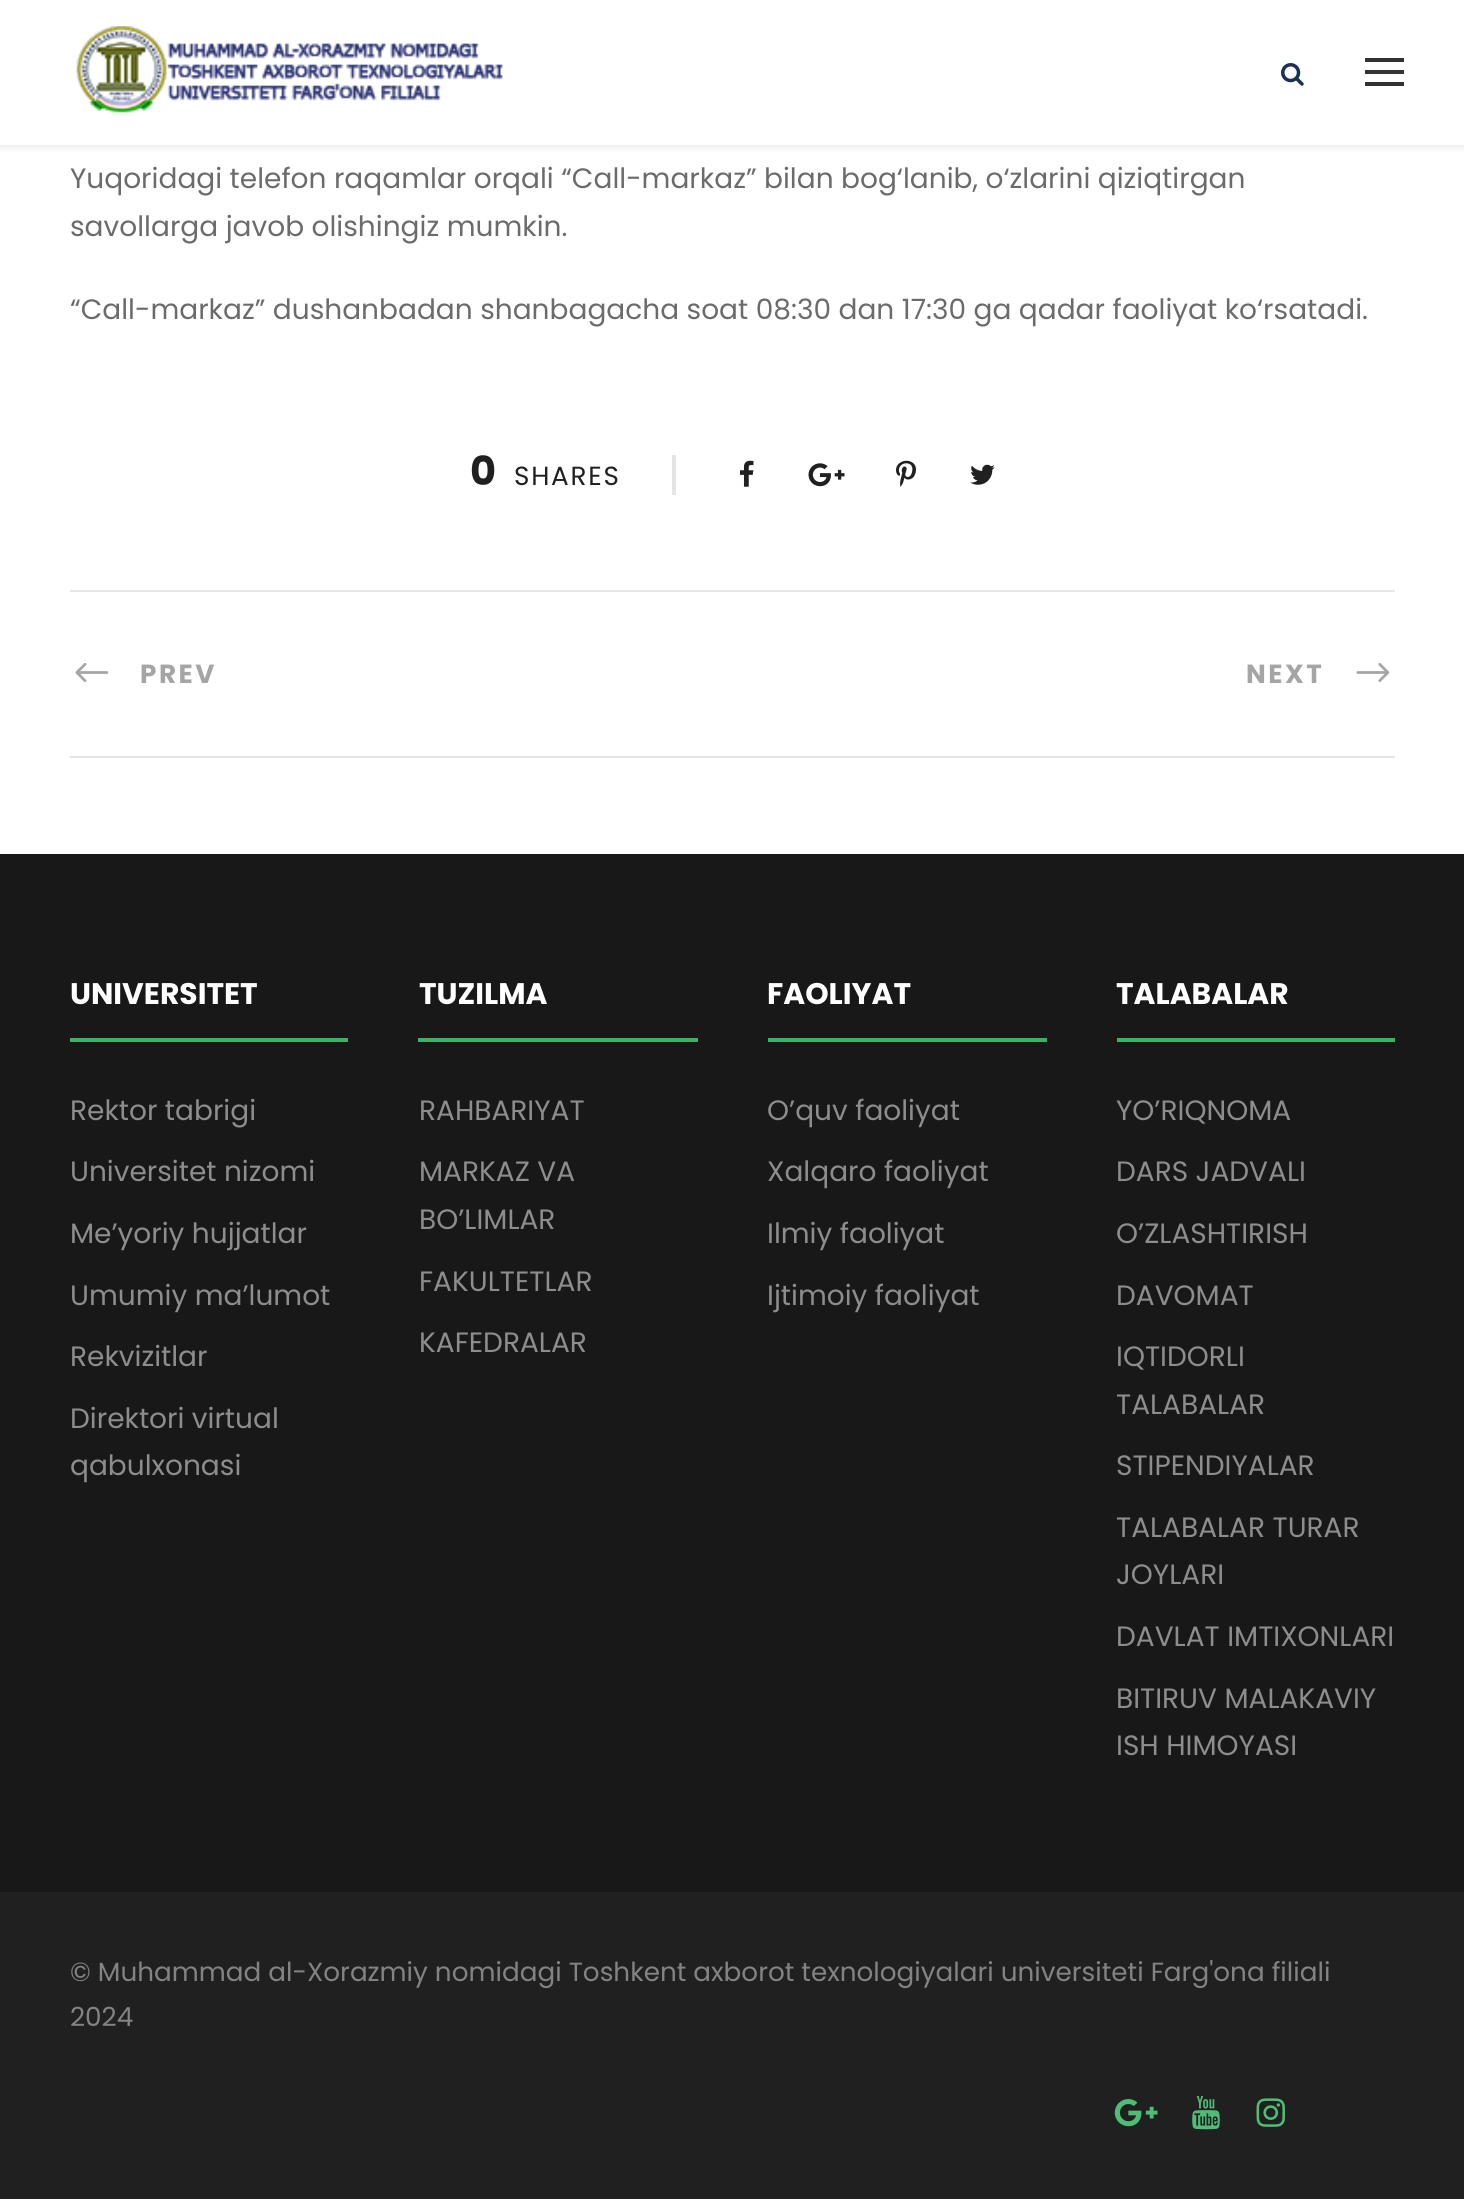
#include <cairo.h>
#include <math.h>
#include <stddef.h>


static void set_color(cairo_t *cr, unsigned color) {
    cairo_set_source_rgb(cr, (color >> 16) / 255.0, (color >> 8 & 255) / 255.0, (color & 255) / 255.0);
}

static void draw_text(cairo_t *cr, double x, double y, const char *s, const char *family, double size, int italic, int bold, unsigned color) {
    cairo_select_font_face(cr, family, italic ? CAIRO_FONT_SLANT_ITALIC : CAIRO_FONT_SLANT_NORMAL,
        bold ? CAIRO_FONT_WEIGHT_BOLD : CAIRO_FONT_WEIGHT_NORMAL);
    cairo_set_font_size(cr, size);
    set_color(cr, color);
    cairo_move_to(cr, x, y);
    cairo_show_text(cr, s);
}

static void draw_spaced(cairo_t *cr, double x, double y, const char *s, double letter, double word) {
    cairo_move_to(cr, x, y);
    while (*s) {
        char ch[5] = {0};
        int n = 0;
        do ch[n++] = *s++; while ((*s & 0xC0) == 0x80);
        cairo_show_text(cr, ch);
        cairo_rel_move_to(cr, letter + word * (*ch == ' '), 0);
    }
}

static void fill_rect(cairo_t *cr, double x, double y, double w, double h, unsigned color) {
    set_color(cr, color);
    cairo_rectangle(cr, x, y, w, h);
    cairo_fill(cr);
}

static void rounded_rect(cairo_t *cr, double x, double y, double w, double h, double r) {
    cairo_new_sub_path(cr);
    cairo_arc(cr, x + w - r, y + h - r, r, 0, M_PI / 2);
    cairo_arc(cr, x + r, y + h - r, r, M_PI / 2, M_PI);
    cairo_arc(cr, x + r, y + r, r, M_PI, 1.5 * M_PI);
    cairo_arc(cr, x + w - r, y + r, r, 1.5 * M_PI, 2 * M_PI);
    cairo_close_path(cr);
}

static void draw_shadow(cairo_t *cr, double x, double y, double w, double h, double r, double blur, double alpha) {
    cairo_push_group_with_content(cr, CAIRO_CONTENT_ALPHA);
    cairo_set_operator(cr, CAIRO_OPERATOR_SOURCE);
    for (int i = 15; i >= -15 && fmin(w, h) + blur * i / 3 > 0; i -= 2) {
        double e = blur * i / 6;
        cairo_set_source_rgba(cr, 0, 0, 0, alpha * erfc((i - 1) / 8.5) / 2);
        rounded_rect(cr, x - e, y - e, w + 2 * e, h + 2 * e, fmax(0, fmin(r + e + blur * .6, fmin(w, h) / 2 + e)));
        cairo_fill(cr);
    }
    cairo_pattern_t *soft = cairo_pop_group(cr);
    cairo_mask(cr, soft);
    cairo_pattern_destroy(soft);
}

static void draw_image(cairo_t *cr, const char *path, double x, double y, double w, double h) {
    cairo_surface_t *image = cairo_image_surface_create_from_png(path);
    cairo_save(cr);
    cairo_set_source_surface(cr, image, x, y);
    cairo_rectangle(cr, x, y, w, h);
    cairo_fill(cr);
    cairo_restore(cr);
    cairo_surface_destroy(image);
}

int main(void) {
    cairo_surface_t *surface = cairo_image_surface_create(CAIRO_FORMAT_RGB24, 1464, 2199);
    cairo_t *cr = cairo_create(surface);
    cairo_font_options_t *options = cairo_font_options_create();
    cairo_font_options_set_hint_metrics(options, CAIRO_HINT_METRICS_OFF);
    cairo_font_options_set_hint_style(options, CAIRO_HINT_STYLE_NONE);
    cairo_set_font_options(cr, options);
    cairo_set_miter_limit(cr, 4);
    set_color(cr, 0xFFFFFF);
    cairo_paint(cr);
    set_color(cr, 0x000000);
    draw_shadow(cr, 0, 2, 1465, 145, 0, 3.5, 0.1);
    fill_rect(cr, 0, 0, 1464, 145, 0xFFFFFF);
    draw_image(cr, "assets/img1.png", 76, 26, 427, 87);
    draw_image(cr, "assets/img2.png", 1281, 63, 23, 23);
    fill_rect(cr, 1365, 58, 39, 4, 0x333333);
    fill_rect(cr, 1365, 70, 39, 4, 0x333333);
    fill_rect(cr, 1365, 82, 39, 4, 0x333333);
    draw_text(cr, 70, 188, "Yuqoridagi telefon raqamlar orqali “Call-markaz” bilan bog‘lanib, o‘zlarini qiziqtirgan", "Poppins", 28, 0, 0, 0x6B6B6B);
    draw_text(cr, 70, 236, "savollarga javob olishingiz mumkin.", "Poppins", 28, 0, 0, 0x6B6B6B);
    draw_text(cr, 70, 319, "“Call-markaz” dushanbadan shanbagacha soat 08:30 dan 17:30 ga qadar faoliyat ko‘rsatadi.", "Poppins", 28, 0, 0, 0x6B6B6B);
    draw_text(cr, 470, 485, "0", "Poppins", 40, 0, 1, 0x202020);
    cairo_select_font_face(cr, "Poppins", CAIRO_FONT_SLANT_NORMAL, CAIRO_FONT_WEIGHT_NORMAL);
    cairo_set_font_size(cr, 26.25);
    draw_spaced(cr, 514, 485, "SHARES", 1.75, 0);
    fill_rect(cr, 672, 455, 4, 40, 0xE5E5E5);
    draw_image(cr, "assets/img3.png", 740, 460, 14, 27);
    draw_image(cr, "assets/img4.png", 808, 463, 37, 24);
    draw_image(cr, "assets/img5.png", 896, 460, 20, 27);
    draw_image(cr, "assets/img6.png", 970, 464, 25, 21);
    fill_rect(cr, 70, 590, 1325, 2, 0xE6E6E6);
    fill_rect(cr, 70, 756, 1325, 2, 0xE6E6E6);
    draw_image(cr, "assets/img7.png", 75, 663, 34, 19);
    cairo_select_font_face(cr, "Poppins", CAIRO_FONT_SLANT_NORMAL, CAIRO_FONT_WEIGHT_BOLD);
    set_color(cr, 0xA5A5A5);
    draw_spaced(cr, 140, 683, "PREV", 2.5, 0);
    draw_spaced(cr, 1246, 683, "NEXT", 2.5, 0);
    draw_image(cr, "assets/img8.png", 1356, 663, 34, 19);
    fill_rect(cr, 0, 854, 1464, 1038, 0x181818);
    fill_rect(cr, 70, 1038, 278, 4, 0x3DB166);
    draw_text(cr, 70, 1004, "UNIVERSITET", "Poppins", 29.75, 0, 1, 0xFFFFFF);
    draw_text(cr, 70, 1120, "Rektor tabrigi", "Poppins", 28, 0, 0, 0x8D8D8D);
    draw_text(cr, 70, 1181, "Universitet nizomi", "Poppins", 28, 0, 0, 0x8D8D8D);
    draw_text(cr, 70, 1243, "Me’yoriy hujjatlar", "Poppins", 28, 0, 0, 0x8D8D8D);
    draw_text(cr, 70, 1305, "Umumiy ma’lumot", "Poppins", 28, 0, 0, 0x8D8D8D);
    draw_text(cr, 70, 1366, "Rekvizitlar", "Poppins", 28, 0, 0, 0x8D8D8D);
    draw_text(cr, 70, 1428, "Direktori virtual", "Poppins", 28, 0, 0, 0x8D8D8D);
    draw_text(cr, 70, 1475, "qabulxonasi", "Poppins", 28, 0, 0, 0x8D8D8D);
    fill_rect(cr, 418, 1038, 280, 4, 0x3DB166);
    draw_text(cr, 419, 1004, "TUZILMA", "Poppins", 29.75, 0, 1, 0xFFFFFF);
    draw_text(cr, 419, 1120, "RAHBARIYAT", "Poppins", 28, 0, 0, 0x8D8D8D);
    draw_text(cr, 419, 1181, "MARKAZ VA", "Poppins", 28, 0, 0, 0x8D8D8D);
    draw_text(cr, 419, 1229, "BO’LIMLAR", "Poppins", 28, 0, 0, 0x8D8D8D);
    draw_text(cr, 419, 1291, "FAKULTETLAR", "Poppins", 28, 0, 0, 0x8D8D8D);
    draw_text(cr, 419, 1352, "KAFEDRALAR", "Poppins", 28, 0, 0, 0x8D8D8D);
    fill_rect(cr, 768, 1038, 279, 4, 0x3DB166);
    draw_text(cr, 767, 1004, "FAOLIYAT", "Poppins", 29.75, 0, 1, 0xFFFFFF);
    draw_text(cr, 767, 1120, "O’quv faoliyat", "Poppins", 28, 0, 0, 0x8D8D8D);
    draw_text(cr, 767, 1181, "Xalqaro faoliyat", "Poppins", 28, 0, 0, 0x8D8D8D);
    draw_text(cr, 767, 1243, "Ilmiy faoliyat", "Poppins", 28, 0, 0, 0x8D8D8D);
    draw_text(cr, 767, 1305, "Ijtimoiy faoliyat", "Poppins", 28, 0, 0, 0x8D8D8D);
    fill_rect(cr, 1117, 1038, 278, 4, 0x3DB166);
    draw_text(cr, 1116, 1004, "TALABALAR", "Poppins", 29.75, 0, 1, 0xFFFFFF);
    draw_text(cr, 1116, 1120, "YO’RIQNOMA", "Poppins", 28, 0, 0, 0x8D8D8D);
    draw_text(cr, 1116, 1181, "DARS JADVALI", "Poppins", 28, 0, 0, 0x8D8D8D);
    draw_text(cr, 1116, 1243, "O’ZLASHTIRISH", "Poppins", 28, 0, 0, 0x8D8D8D);
    draw_text(cr, 1116, 1305, "DAVOMAT", "Poppins", 28, 0, 0, 0x8D8D8D);
    draw_text(cr, 1116, 1366, "IQTIDORLI", "Poppins", 28, 0, 0, 0x8D8D8D);
    draw_text(cr, 1116, 1414, "TALABALAR", "Poppins", 28, 0, 0, 0x8D8D8D);
    draw_text(cr, 1116, 1475, "STIPENDIYALAR", "Poppins", 28, 0, 0, 0x8D8D8D);
    draw_text(cr, 1116, 1537, "TALABALAR TURAR", "Poppins", 28, 0, 0, 0x8D8D8D);
    draw_text(cr, 1116, 1584, "JOYLARI", "Poppins", 28, 0, 0, 0x8D8D8D);
    draw_text(cr, 1116, 1646, "DAVLAT IMTIXONLARI", "Poppins", 28, 0, 0, 0x8D8D8D);
    draw_text(cr, 1116, 1708, "BITIRUV MALAKAVIY", "Poppins", 28, 0, 0, 0x8D8D8D);
    draw_text(cr, 1116, 1755, "ISH HIMOYASI", "Poppins", 28, 0, 0, 0x8D8D8D);
    fill_rect(cr, 0, 1892, 1464, 307, 0x202020);
    draw_text(cr, 70, 1981, "© Muhammad al-Xorazmiy nomidagi Toshkent axborot texnologiyalari universiteti Farg'ona filiali", "Poppins", 26.25, 0, 0, 0x838383);
    draw_text(cr, 70, 2026, "2024", "Poppins", 26.25, 0, 0, 0x838383);
    draw_image(cr, "assets/img9.png", 1114, 2099, 44, 28);
    draw_image(cr, "assets/img10.png", 1192, 2096, 28, 34);
    draw_image(cr, "assets/img11.png", 1256, 2098, 29, 29);
    cairo_surface_write_to_png(surface, "output.png");
    cairo_font_options_destroy(options);
    cairo_destroy(cr);
    cairo_surface_destroy(surface);
    return 0;
}
